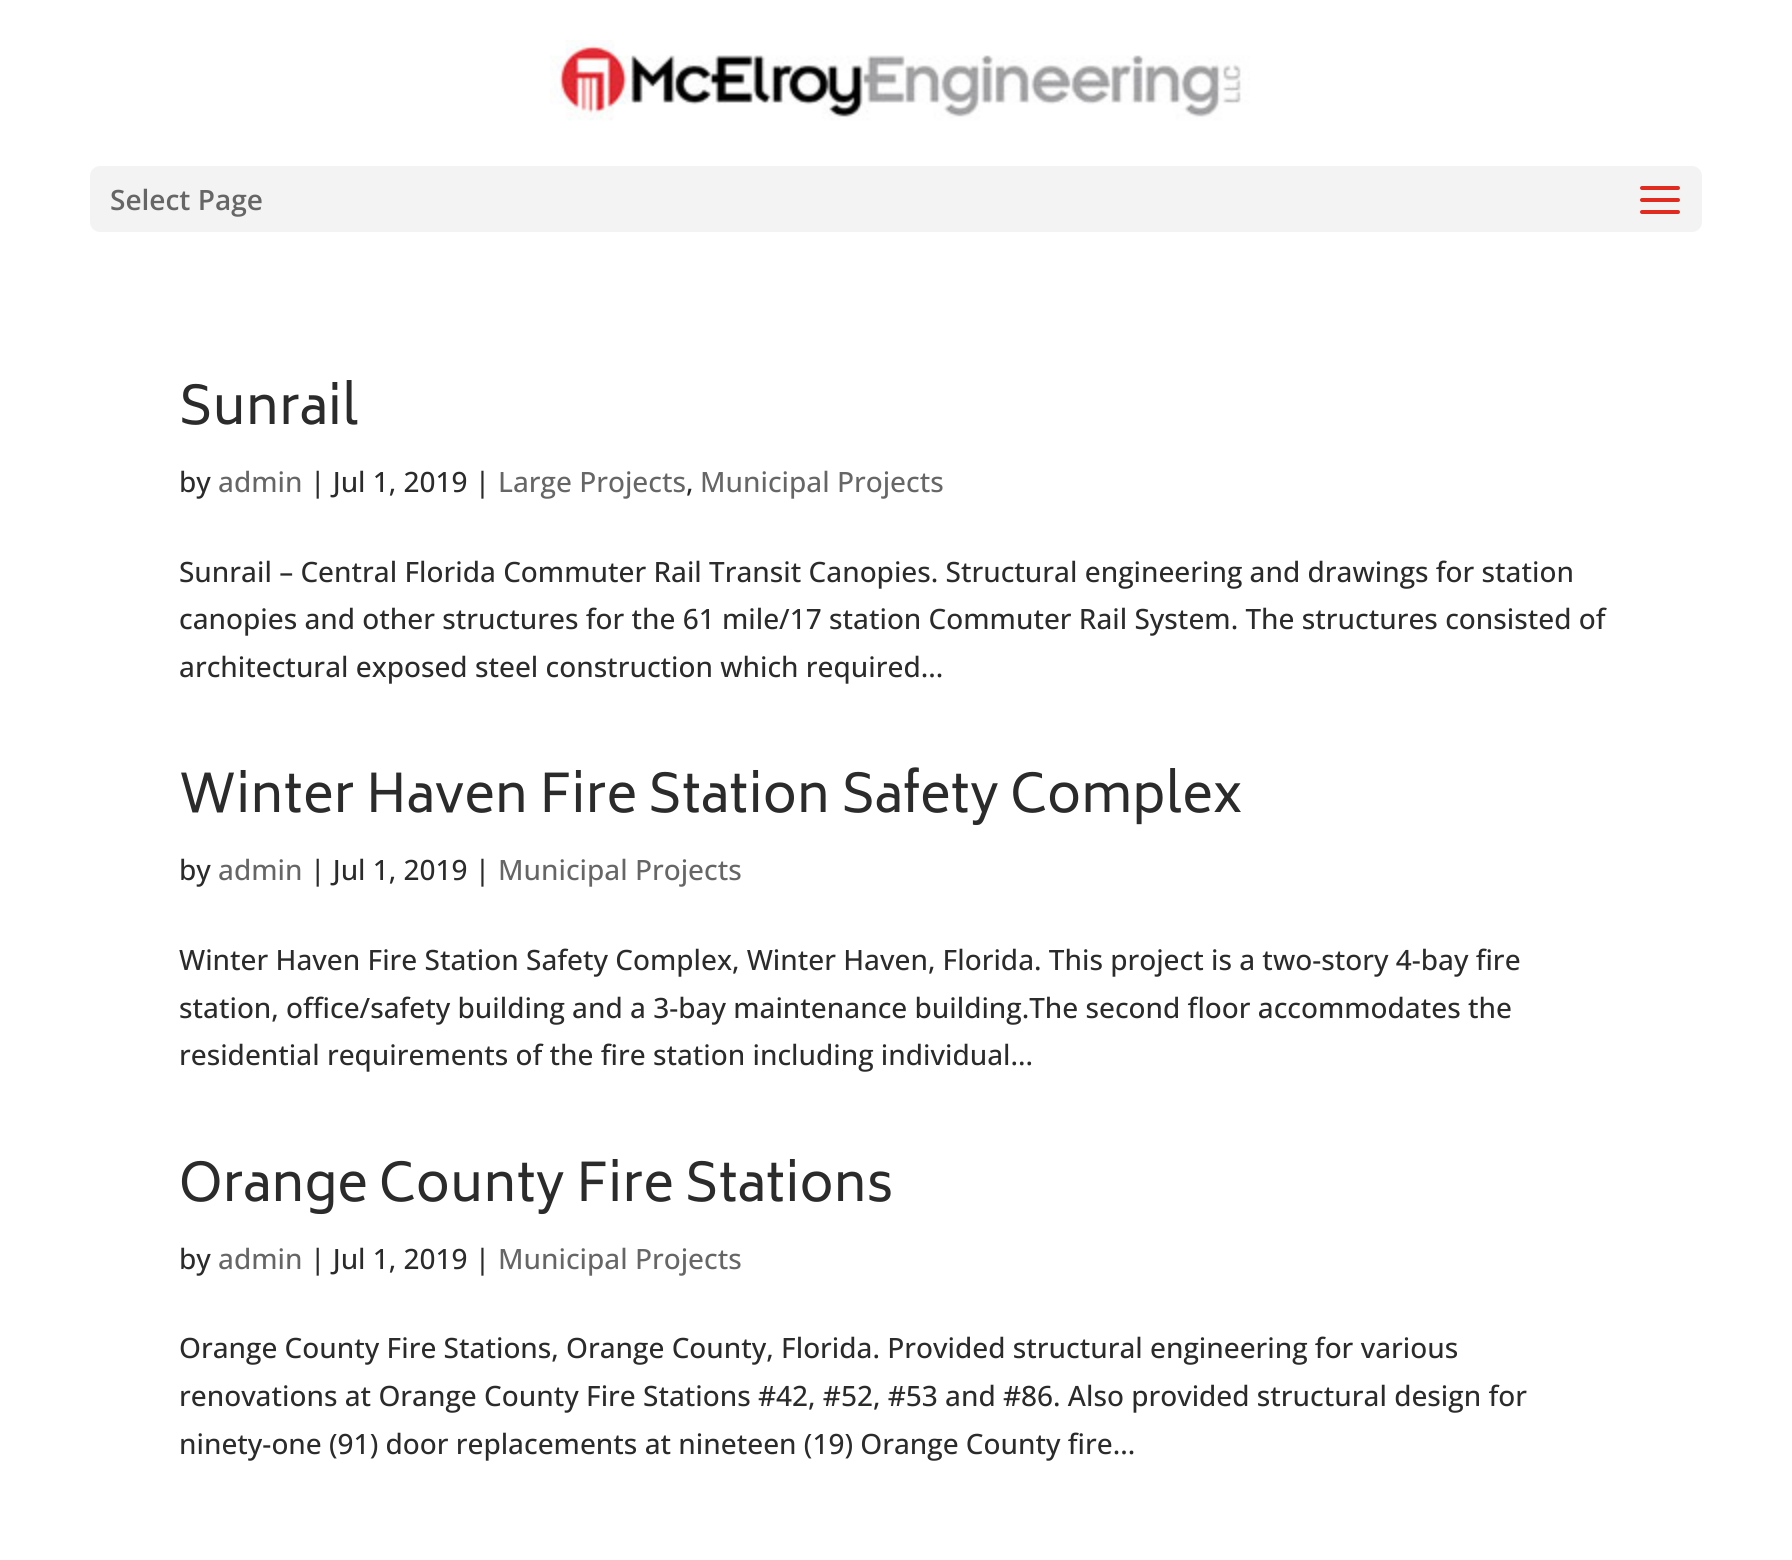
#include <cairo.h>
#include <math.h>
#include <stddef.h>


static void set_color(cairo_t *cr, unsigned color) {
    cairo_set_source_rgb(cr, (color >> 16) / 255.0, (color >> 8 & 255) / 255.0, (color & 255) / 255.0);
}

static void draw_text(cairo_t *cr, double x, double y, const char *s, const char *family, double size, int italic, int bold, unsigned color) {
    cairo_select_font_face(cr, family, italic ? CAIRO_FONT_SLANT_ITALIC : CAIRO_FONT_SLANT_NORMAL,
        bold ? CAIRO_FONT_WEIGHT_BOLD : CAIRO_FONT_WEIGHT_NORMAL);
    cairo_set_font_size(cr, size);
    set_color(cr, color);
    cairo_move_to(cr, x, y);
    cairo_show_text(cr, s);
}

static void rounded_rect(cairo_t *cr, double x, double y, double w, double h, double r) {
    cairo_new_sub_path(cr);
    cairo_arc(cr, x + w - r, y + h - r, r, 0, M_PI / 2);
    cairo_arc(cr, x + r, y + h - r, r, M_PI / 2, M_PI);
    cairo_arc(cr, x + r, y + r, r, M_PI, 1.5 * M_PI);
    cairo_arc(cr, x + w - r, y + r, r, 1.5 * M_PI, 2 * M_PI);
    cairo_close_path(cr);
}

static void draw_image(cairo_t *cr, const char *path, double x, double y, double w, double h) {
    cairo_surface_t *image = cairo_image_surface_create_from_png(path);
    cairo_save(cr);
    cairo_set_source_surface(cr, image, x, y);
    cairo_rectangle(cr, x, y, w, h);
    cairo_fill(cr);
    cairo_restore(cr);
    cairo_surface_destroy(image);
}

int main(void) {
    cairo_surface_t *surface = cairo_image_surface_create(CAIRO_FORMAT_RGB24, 1792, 1560);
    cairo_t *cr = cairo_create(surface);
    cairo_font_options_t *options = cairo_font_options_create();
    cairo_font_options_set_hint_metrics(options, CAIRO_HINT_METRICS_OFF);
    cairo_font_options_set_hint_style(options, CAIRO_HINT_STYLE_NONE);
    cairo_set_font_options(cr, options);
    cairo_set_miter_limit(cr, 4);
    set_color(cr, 0xFFFFFF);
    cairo_paint(cr);
    draw_image(cr, "assets/img1.png", 550, 40, 700, 81);
    set_color(cr, 0xF3F3F3);
    rounded_rect(cr, 90, 166, 1612, 66, 10);
    cairo_fill(cr);
    draw_text(cr, 110, 210, "Select Page", "Open Sans SemiBold", 28, 0, 0, 0x666666);
    draw_image(cr, "assets/img2.png", 1640, 186, 40, 28);
    draw_text(cr, 179, 424, "Sunrail", "Biryani", 52, 0, 0, 0x2B2B2B);
    draw_text(cr, 179, 492, "by", "Open Sans Medium", 28, 0, 0, 0x2B2B2B);
    draw_text(cr, 218, 492, "admin", "Open Sans Medium", 28, 0, 0, 0x666666);
    draw_text(cr, 310, 492, "| Jul 1, 2019 |", "Open Sans Medium", 28, 0, 0, 0x2B2B2B);
    draw_text(cr, 498, 492, "Large Projects", "Open Sans Medium", 28, 0, 0, 0x666666);
    draw_text(cr, 686, 492, ",", "Open Sans Medium", 28, 0, 0, 0x2B2B2B);
    draw_text(cr, 700, 492, "Municipal Projects", "Open Sans Medium", 28, 0, 0, 0x666666);
    draw_text(cr, 179, 582, "Sunrail – Central Florida Commuter Rail Transit Canopies. Structural engineering and drawings for station", "Open Sans Medium", 28, 0, 0, 0x2B2B2B);
    draw_text(cr, 179, 629, "canopies and other structures for the 61 mile/17 station Commuter Rail System. The structures consisted of", "Open Sans Medium", 28, 0, 0, 0x2B2B2B);
    draw_text(cr, 179, 677, "architectural exposed steel construction which required...", "Open Sans Medium", 28, 0, 0, 0x2B2B2B);
    draw_text(cr, 179, 812, "Winter Haven Fire Station Safety Complex", "Biryani", 52, 0, 0, 0x2B2B2B);
    draw_text(cr, 179, 880, "by", "Open Sans Medium", 28, 0, 0, 0x2B2B2B);
    draw_text(cr, 218, 880, "admin", "Open Sans Medium", 28, 0, 0, 0x666666);
    draw_text(cr, 310, 880, "| Jul 1, 2019 |", "Open Sans Medium", 28, 0, 0, 0x2B2B2B);
    draw_text(cr, 498, 880, "Municipal Projects", "Open Sans Medium", 28, 0, 0, 0x666666);
    draw_text(cr, 179, 970, "Winter Haven Fire Station Safety Complex, Winter Haven, Florida. This project is a two-story 4-bay fire", "Open Sans Medium", 28, 0, 0, 0x2B2B2B);
    draw_text(cr, 179, 1018, "station, office/safety building and a 3-bay maintenance building.The second floor accommodates the", "Open Sans Medium", 28, 0, 0, 0x2B2B2B);
    draw_text(cr, 179, 1065, "residential requirements of the fire station including individual...", "Open Sans Medium", 28, 0, 0, 0x2B2B2B);
    draw_text(cr, 179, 1201, "Orange County Fire Stations", "Biryani", 52, 0, 0, 0x2B2B2B);
    draw_text(cr, 179, 1269, "by", "Open Sans Medium", 28, 0, 0, 0x2B2B2B);
    draw_text(cr, 218, 1269, "admin", "Open Sans Medium", 28, 0, 0, 0x666666);
    draw_text(cr, 310, 1269, "| Jul 1, 2019 |", "Open Sans Medium", 28, 0, 0, 0x2B2B2B);
    draw_text(cr, 498, 1269, "Municipal Projects", "Open Sans Medium", 28, 0, 0, 0x666666);
    draw_text(cr, 179, 1358, "Orange County Fire Stations, Orange County, Florida. Provided structural engineering for various", "Open Sans Medium", 28, 0, 0, 0x2B2B2B);
    draw_text(cr, 179, 1406, "renovations at Orange County Fire Stations #42, #52, #53 and #86. Also provided structural design for", "Open Sans Medium", 28, 0, 0, 0x2B2B2B);
    draw_text(cr, 179, 1454, "ninety-one (91) door replacements at nineteen (19) Orange County fire...", "Open Sans Medium", 28, 0, 0, 0x2B2B2B);
    cairo_surface_write_to_png(surface, "output.png");
    cairo_font_options_destroy(options);
    cairo_destroy(cr);
    cairo_surface_destroy(surface);
    return 0;
}
